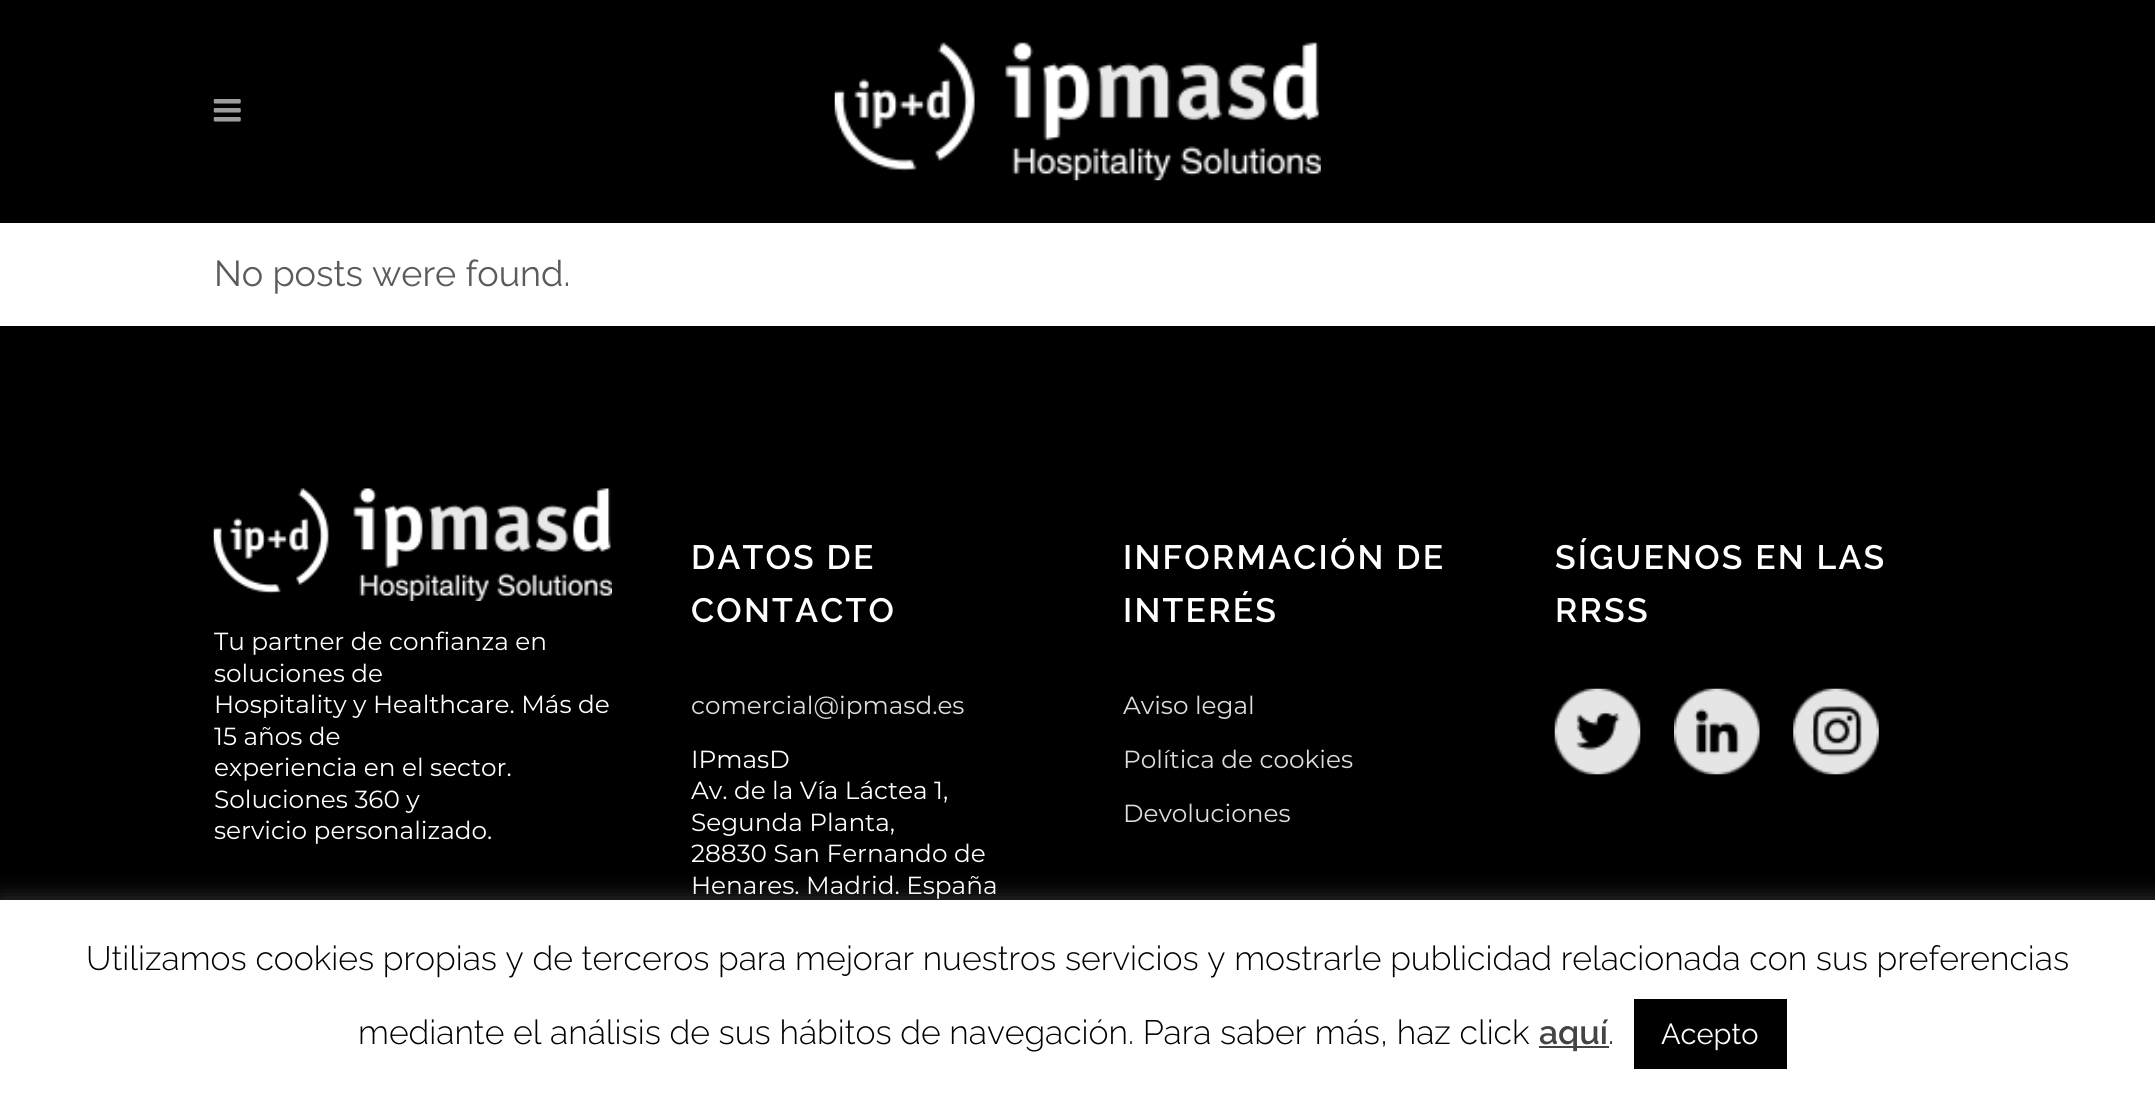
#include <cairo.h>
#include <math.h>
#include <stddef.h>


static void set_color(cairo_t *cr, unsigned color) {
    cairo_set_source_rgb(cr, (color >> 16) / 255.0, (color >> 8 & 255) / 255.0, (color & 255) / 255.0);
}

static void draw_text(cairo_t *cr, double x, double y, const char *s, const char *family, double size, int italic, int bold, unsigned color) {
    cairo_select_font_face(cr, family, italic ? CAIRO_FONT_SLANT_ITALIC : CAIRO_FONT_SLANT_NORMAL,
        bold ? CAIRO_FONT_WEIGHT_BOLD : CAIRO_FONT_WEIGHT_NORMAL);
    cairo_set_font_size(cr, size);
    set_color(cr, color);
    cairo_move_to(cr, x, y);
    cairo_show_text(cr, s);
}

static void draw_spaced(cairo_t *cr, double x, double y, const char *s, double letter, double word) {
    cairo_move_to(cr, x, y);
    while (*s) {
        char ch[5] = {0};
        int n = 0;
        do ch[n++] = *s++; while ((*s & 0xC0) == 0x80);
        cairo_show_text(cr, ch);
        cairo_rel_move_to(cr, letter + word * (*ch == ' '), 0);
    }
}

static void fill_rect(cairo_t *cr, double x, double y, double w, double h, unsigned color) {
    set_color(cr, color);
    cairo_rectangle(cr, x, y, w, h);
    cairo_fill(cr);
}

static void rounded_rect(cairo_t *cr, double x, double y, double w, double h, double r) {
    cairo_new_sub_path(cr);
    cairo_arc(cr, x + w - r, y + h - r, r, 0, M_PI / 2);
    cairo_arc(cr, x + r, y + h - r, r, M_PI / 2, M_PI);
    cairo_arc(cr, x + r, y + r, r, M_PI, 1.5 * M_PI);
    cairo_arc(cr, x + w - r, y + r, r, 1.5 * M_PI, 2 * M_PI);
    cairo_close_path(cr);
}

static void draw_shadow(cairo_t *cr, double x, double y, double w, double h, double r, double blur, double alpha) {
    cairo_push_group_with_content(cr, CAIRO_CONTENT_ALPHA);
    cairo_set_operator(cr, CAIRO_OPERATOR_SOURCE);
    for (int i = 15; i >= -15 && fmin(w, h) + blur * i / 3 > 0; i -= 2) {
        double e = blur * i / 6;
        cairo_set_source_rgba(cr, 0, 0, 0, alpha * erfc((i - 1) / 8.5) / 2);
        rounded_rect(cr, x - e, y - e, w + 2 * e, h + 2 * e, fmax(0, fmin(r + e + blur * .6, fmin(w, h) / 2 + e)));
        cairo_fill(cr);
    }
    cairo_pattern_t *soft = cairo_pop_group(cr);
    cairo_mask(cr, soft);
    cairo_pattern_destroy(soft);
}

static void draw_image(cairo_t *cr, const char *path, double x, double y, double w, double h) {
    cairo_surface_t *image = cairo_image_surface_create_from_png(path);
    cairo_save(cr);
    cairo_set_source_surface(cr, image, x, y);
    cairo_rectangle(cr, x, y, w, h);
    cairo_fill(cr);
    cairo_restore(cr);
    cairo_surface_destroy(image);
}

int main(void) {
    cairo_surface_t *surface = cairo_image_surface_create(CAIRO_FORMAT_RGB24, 2155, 1107);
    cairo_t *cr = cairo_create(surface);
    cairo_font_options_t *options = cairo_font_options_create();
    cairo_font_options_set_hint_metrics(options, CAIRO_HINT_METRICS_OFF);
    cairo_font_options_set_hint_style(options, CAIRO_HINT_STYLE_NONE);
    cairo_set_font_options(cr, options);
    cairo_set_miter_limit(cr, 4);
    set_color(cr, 0xFFFFFF);
    cairo_paint(cr);
    fill_rect(cr, 0, 0, 2155, 223, 0x000000);
    draw_image(cr, "assets/img1.png", 213, 99, 28, 23);
    draw_image(cr, "assets/img2.png", 834, 42, 487, 139);
    draw_text(cr, 214, 286, "No posts were found.", "Raleway", 36, 0, 0, 0x5B5B5B);
    fill_rect(cr, 0, 326, 2155, 574, 0x000000);
    draw_image(cr, "assets/img3.png", 213, 488, 399, 113);
    draw_text(cr, 214, 650, "Tu partner de confianza en", "Montserrat", 24.75, 0, 0, 0xFFFFFF);
    draw_text(cr, 214, 682, "soluciones de", "Montserrat", 24.75, 0, 0, 0xFFFFFF);
    draw_text(cr, 214, 713, "Hospitality y Healthcare. Más de", "Montserrat", 24.75, 0, 0, 0xFFFFFF);
    draw_text(cr, 214, 745, "15 años de", "Montserrat", 24.75, 0, 0, 0xFFFFFF);
    draw_text(cr, 214, 776, "experiencia en el sector.", "Montserrat", 24.75, 0, 0, 0xFFFFFF);
    draw_text(cr, 214, 808, "Soluciones 360 y", "Montserrat", 24.75, 0, 0, 0xFFFFFF);
    draw_text(cr, 214, 839, "servicio personalizado.", "Montserrat", 24.75, 0, 0, 0xFFFFFF);
    cairo_select_font_face(cr, "Raleway SemiBold", CAIRO_FONT_SLANT_NORMAL, CAIRO_FONT_WEIGHT_NORMAL);
    cairo_set_font_size(cr, 33.75);
    draw_spaced(cr, 691, 569, "DATOS DE", 2.25, 0);
    draw_spaced(cr, 691, 622, "CONTACTO", 2.25, 0);
    draw_text(cr, 691, 714, "comercial@ipmasd.es", "Montserrat", 24.75, 0, 0, 0xDDDDDD);
    draw_text(cr, 691, 768, "IPmasD", "Montserrat", 24.75, 0, 0, 0xFFFFFF);
    draw_text(cr, 691, 799, "Av. de la Vía Láctea 1,", "Montserrat", 24.75, 0, 0, 0xFFFFFF);
    draw_text(cr, 691, 831, "Segunda Planta,", "Montserrat", 24.75, 0, 0, 0xFFFFFF);
    draw_text(cr, 691, 862, "28830 San Fernando de", "Montserrat", 24.75, 0, 0, 0xFFFFFF);
    draw_text(cr, 691, 894, "Henares. Madrid. España", "Montserrat", 24.75, 0, 0, 0xFFFFFF);
    cairo_select_font_face(cr, "Raleway SemiBold", CAIRO_FONT_SLANT_NORMAL, CAIRO_FONT_WEIGHT_NORMAL);
    cairo_set_font_size(cr, 33.75);
    draw_spaced(cr, 1123, 569, "INFORMACIÓN DE", 2.25, 0);
    draw_spaced(cr, 1123, 622, "INTERÉS", 2.25, 0);
    draw_text(cr, 1123, 714, "Aviso legal", "Montserrat", 24.75, 0, 0, 0xDDDDDD);
    draw_text(cr, 1123, 768, "Política de cookies", "Montserrat", 24.75, 0, 0, 0xDDDDDD);
    draw_text(cr, 1123, 822, "Devoluciones", "Montserrat", 24.75, 0, 0, 0xDDDDDD);
    cairo_select_font_face(cr, "Raleway SemiBold", CAIRO_FONT_SLANT_NORMAL, CAIRO_FONT_WEIGHT_NORMAL);
    cairo_set_font_size(cr, 33.75);
    set_color(cr, 0xFFFFFF);
    draw_spaced(cr, 1555, 569, "SÍGUENOS EN LAS", 2.25, 0);
    draw_spaced(cr, 1555, 622, "RRSS", 2.25, 0);
    draw_image(cr, "assets/img4.png", 1554, 688, 87, 87);
    draw_image(cr, "assets/img5.png", 1674, 688, 86, 87);
    draw_image(cr, "assets/img6.png", 1793, 688, 86, 87);
    set_color(cr, 0xACABAB);
    draw_shadow(cr, 0, 898, 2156, 207, 0, 11, 0.3);
    fill_rect(cr, 0, 900, 2155, 207, 0xFFFFFF);
    draw_text(cr, 86, 970, "Utilizamos cookies propias y de terceros para mejorar nuestros servicios y mostrarle publicidad relacionada con sus preferencias", "Raleway Light", 33.75, 0, 0, 0x000000);
    draw_text(cr, 358, 1044, "mediante el análisis de sus hábitos de navegación. Para saber más, haz click", "Raleway Light", 33.75, 0, 0, 0x000000);
    fill_rect(cr, 1539, 1046, 70, 2, 0x444444);
    draw_text(cr, 1539, 1044, "aquí", "Raleway SemiBold", 33.75, 0, 0, 0x444444);
    draw_text(cr, 1608, 1044, ".", "Raleway Light", 33.75, 0, 0, 0x000000);
    fill_rect(cr, 1634, 999, 153, 70, 0x000000);
    draw_text(cr, 1661, 1044, "Acepto", "Raleway", 29, 0, 0, 0xFFFFFF);
    cairo_surface_write_to_png(surface, "output.png");
    cairo_font_options_destroy(options);
    cairo_destroy(cr);
    cairo_surface_destroy(surface);
    return 0;
}
